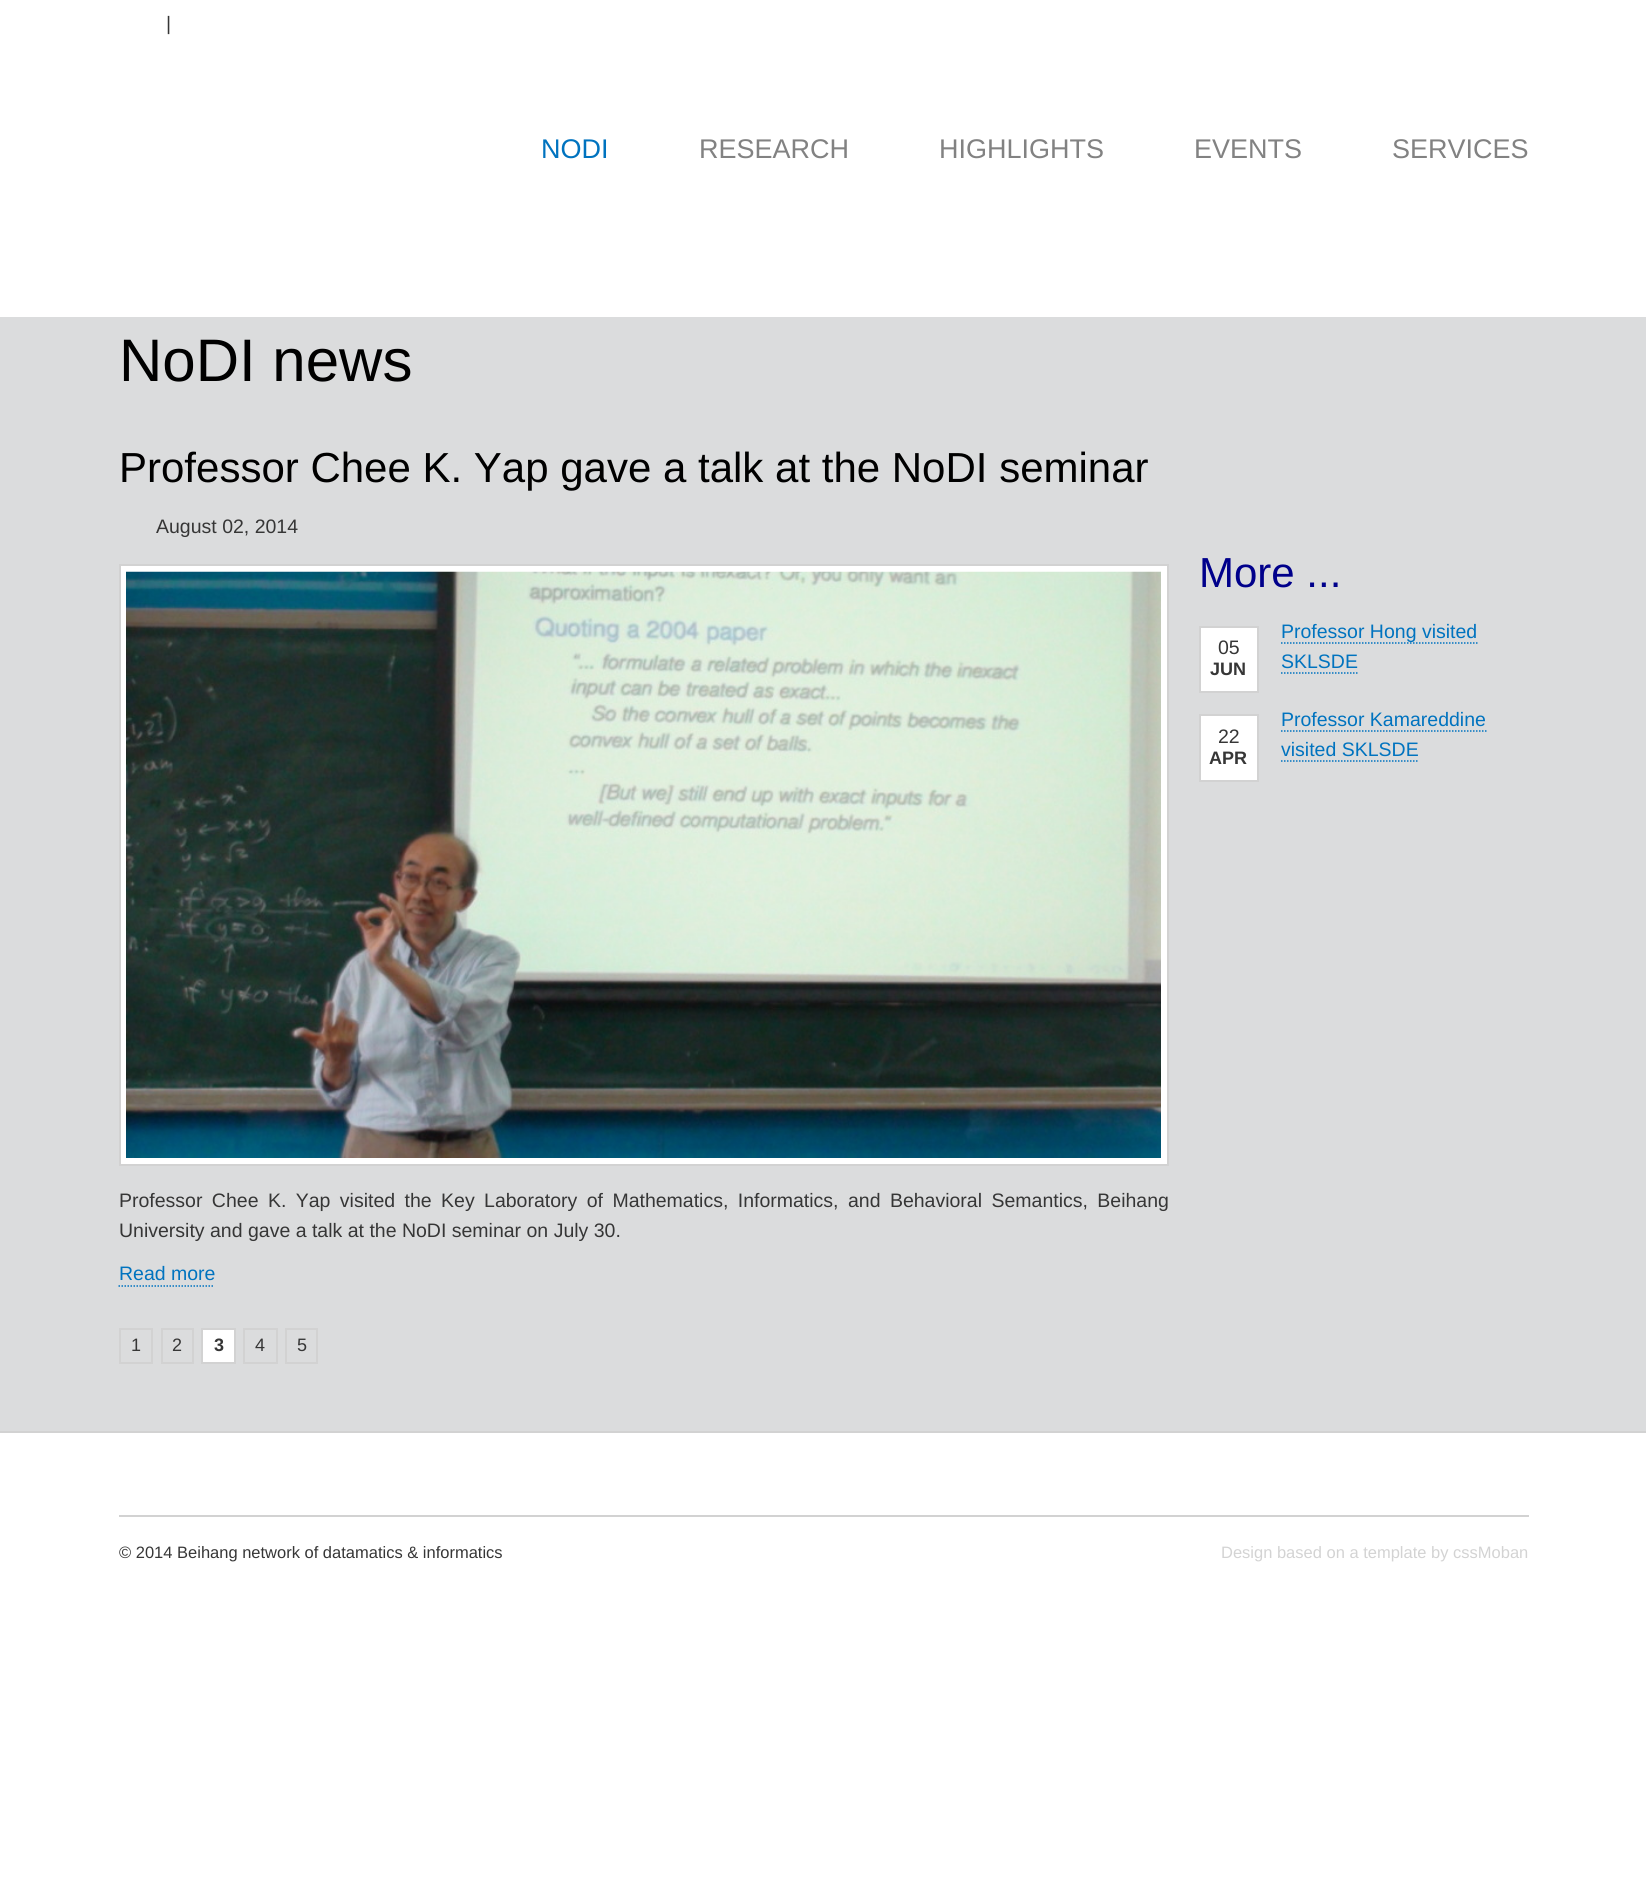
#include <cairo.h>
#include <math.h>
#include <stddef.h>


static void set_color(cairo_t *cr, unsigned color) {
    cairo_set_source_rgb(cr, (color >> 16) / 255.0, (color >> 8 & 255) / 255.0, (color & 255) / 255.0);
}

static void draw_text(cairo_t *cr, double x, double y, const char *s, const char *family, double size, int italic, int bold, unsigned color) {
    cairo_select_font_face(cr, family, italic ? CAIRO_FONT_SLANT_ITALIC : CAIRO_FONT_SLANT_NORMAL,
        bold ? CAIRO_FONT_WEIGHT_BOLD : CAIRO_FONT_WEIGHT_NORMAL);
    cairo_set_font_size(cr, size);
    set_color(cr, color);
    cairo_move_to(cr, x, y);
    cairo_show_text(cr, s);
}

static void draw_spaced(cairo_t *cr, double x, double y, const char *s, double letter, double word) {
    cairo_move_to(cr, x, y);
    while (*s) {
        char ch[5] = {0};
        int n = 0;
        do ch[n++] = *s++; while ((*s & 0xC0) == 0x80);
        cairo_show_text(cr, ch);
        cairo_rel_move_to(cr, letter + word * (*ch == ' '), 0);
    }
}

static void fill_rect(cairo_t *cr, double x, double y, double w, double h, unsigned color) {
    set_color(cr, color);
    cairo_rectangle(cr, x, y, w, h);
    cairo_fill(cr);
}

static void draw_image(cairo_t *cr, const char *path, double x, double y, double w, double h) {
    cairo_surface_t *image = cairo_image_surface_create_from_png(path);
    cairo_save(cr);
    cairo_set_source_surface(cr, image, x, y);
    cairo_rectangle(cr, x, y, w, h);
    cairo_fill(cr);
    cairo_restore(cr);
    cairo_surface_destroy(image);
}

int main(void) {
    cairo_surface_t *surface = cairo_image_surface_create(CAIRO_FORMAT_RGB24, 1646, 1893);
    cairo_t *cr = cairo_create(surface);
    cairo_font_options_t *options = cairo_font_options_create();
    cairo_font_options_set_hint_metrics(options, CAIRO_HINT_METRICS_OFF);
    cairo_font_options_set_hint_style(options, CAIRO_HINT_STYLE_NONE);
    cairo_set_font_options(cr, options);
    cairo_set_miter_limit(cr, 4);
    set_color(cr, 0xFFFFFF);
    cairo_paint(cr);
    fill_rect(cr, 0, 317, 1646, 1114, 0xDBDCDD);
    draw_text(cr, 166, 30, "|", "Liberation Sans", 19.5, 0, 0, 0x363636);
    draw_text(cr, 541, 158, "NODI", "Liberation Sans", 27, 0, 0, 0x0073BF);
    draw_text(cr, 699, 158, "RESEARCH", "Liberation Sans", 27, 0, 0, 0x828282);
    draw_text(cr, 939, 158, "HIGHLIGHTS", "Liberation Sans", 27, 0, 0, 0x828282);
    draw_text(cr, 1194, 158, "EVENTS", "Liberation Sans", 27, 0, 0, 0x828282);
    draw_text(cr, 1392, 158, "SERVICES", "Liberation Sans", 27, 0, 0, 0x828282);
    draw_text(cr, 119, 381, "NoDI news", "Liberation Sans", 60, 0, 0, 0x000000);
    draw_text(cr, 119, 482, "Professor Chee K. Yap gave a talk at the NoDI seminar", "Liberation Sans", 42, 0, 0, 0x000000);
    draw_text(cr, 156, 533, "August 02, 2014", "Liberation Sans", 19.5, 0, 0, 0x363636);
    set_color(cr, 0xFFFFFF);
    cairo_rectangle(cr, 120, 565, 1048, 600);
    cairo_fill_preserve(cr);
    set_color(cr, 0xD2D2D2);
    cairo_stroke(cr);
    draw_image(cr, "assets/img1.png", 126, 571, 1035, 587);
    set_color(cr, 0x363636);
    draw_spaced(cr, 119, 1207, "Professor Chee K. Yap visited the Key Laboratory of Mathematics, Informatics, and Behavioral Semantics, Beihang", 0, 4);
    draw_text(cr, 119, 1237, "University and gave a talk at the NoDI seminar on July 30.", "Liberation Sans", 19.5, 0, 0, 0x363636);
    draw_text(cr, 119, 1280, "Read more", "Liberation Sans", 19.5, 0, 0, 0x0073BF);
    cairo_new_path(cr);
    cairo_move_to(cr, 118.5, 1286);
    cairo_line_to(cr, 214.5, 1286);
    cairo_set_line_width(cr, 1.5);
    cairo_set_dash(cr, (double[]){1.5, 1.5}, 2, 0);
    cairo_stroke(cr);
    cairo_rectangle(cr, 120, 1329, 32, 34);
    set_color(cr, 0xD2D2D2);
    cairo_set_line_width(cr, 2);
    cairo_set_dash(cr, NULL, 0, 0);
    cairo_stroke(cr);
    draw_text(cr, 131, 1351, "1", "Liberation Sans", 18, 0, 0, 0x363636);
    cairo_rectangle(cr, 162, 1329, 31, 34);
    set_color(cr, 0xD2D2D2);
    cairo_stroke(cr);
    draw_text(cr, 172, 1351, "2", "Liberation Sans", 18, 0, 0, 0x363636);
    set_color(cr, 0xFFFFFF);
    cairo_rectangle(cr, 202, 1329, 33, 34);
    cairo_fill_preserve(cr);
    set_color(cr, 0xD2D2D2);
    cairo_stroke(cr);
    draw_text(cr, 214, 1351, "3", "Liberation Sans", 18, 0, 1, 0x363636);
    cairo_rectangle(cr, 244, 1329, 33, 34);
    set_color(cr, 0xD2D2D2);
    cairo_stroke(cr);
    draw_text(cr, 255, 1351, "4", "Liberation Sans", 18, 0, 0, 0x363636);
    cairo_rectangle(cr, 286, 1329, 31, 34);
    set_color(cr, 0xD2D2D2);
    cairo_stroke(cr);
    draw_text(cr, 297, 1351, "5", "Liberation Sans", 18, 0, 0, 0x363636);
    draw_text(cr, 1199, 587, "More ...", "Liberation Sans", 42, 0, 0, 0x00008B);
    set_color(cr, 0xFFFFFF);
    cairo_rectangle(cr, 1200, 627, 58, 65);
    cairo_fill_preserve(cr);
    set_color(cr, 0xD2D2D2);
    cairo_stroke(cr);
    draw_text(cr, 1218, 654, "05", "Liberation Sans", 19.5, 0, 0, 0x363636);
    draw_text(cr, 1210, 675, "JUN", "Liberation Sans", 18, 0, 1, 0x363636);
    cairo_new_path(cr);
    cairo_move_to(cr, 1281, 643);
    cairo_line_to(cr, 1477.5, 643);
    set_color(cr, 0x0073BF);
    cairo_set_line_width(cr, 1.5);
    cairo_set_dash(cr, (double[]){1.5, 1.5}, 2, 0);
    cairo_stroke(cr);
    draw_text(cr, 1281, 638, "Professor Hong visited", "Liberation Sans", 19.5, 0, 0, 0x0073BF);
    draw_text(cr, 1281, 668, "SKLSDE", "Liberation Sans", 19.5, 0, 0, 0x0073BF);
    cairo_new_path(cr);
    cairo_move_to(cr, 1281, 673);
    cairo_line_to(cr, 1357.5, 673);
    cairo_stroke(cr);
    set_color(cr, 0xFFFFFF);
    cairo_rectangle(cr, 1200, 715, 58, 66);
    cairo_fill_preserve(cr);
    set_color(cr, 0xD2D2D2);
    cairo_set_line_width(cr, 2);
    cairo_set_dash(cr, NULL, 0, 0);
    cairo_stroke(cr);
    draw_text(cr, 1218, 743, "22", "Liberation Sans", 19.5, 0, 0, 0x363636);
    draw_text(cr, 1209, 764, "APR", "Liberation Sans", 18, 0, 1, 0x363636);
    draw_text(cr, 1281, 726, "Professor Kamareddine", "Liberation Sans", 19.5, 0, 0, 0x0073BF);
    cairo_new_path(cr);
    cairo_move_to(cr, 1281, 731);
    cairo_line_to(cr, 1486.5, 731);
    cairo_set_line_width(cr, 1.5);
    cairo_set_dash(cr, (double[]){1.5, 1.5}, 2, 0);
    cairo_stroke(cr);
    draw_text(cr, 1281, 756, "visited SKLSDE", "Liberation Sans", 19.5, 0, 0, 0x0073BF);
    cairo_new_path(cr);
    cairo_move_to(cr, 1281, 761);
    cairo_line_to(cr, 1419, 761);
    cairo_stroke(cr);
    fill_rect(cr, 0, 1431, 1646, 2, 0xD2D2D2);
    fill_rect(cr, 119, 1515, 1410, 2, 0xD2D2D2);
    draw_text(cr, 119, 1558, "© 2014 Beihang network of datamatics & informatics", "Liberation Sans", 16.5, 0, 0, 0x363636);
    draw_text(cr, 1221, 1558, "Design based on a template by cssMoban", "Liberation Sans", 16.5, 0, 0, 0xD3D3D3);
    cairo_surface_write_to_png(surface, "output.png");
    cairo_font_options_destroy(options);
    cairo_destroy(cr);
    cairo_surface_destroy(surface);
    return 0;
}
